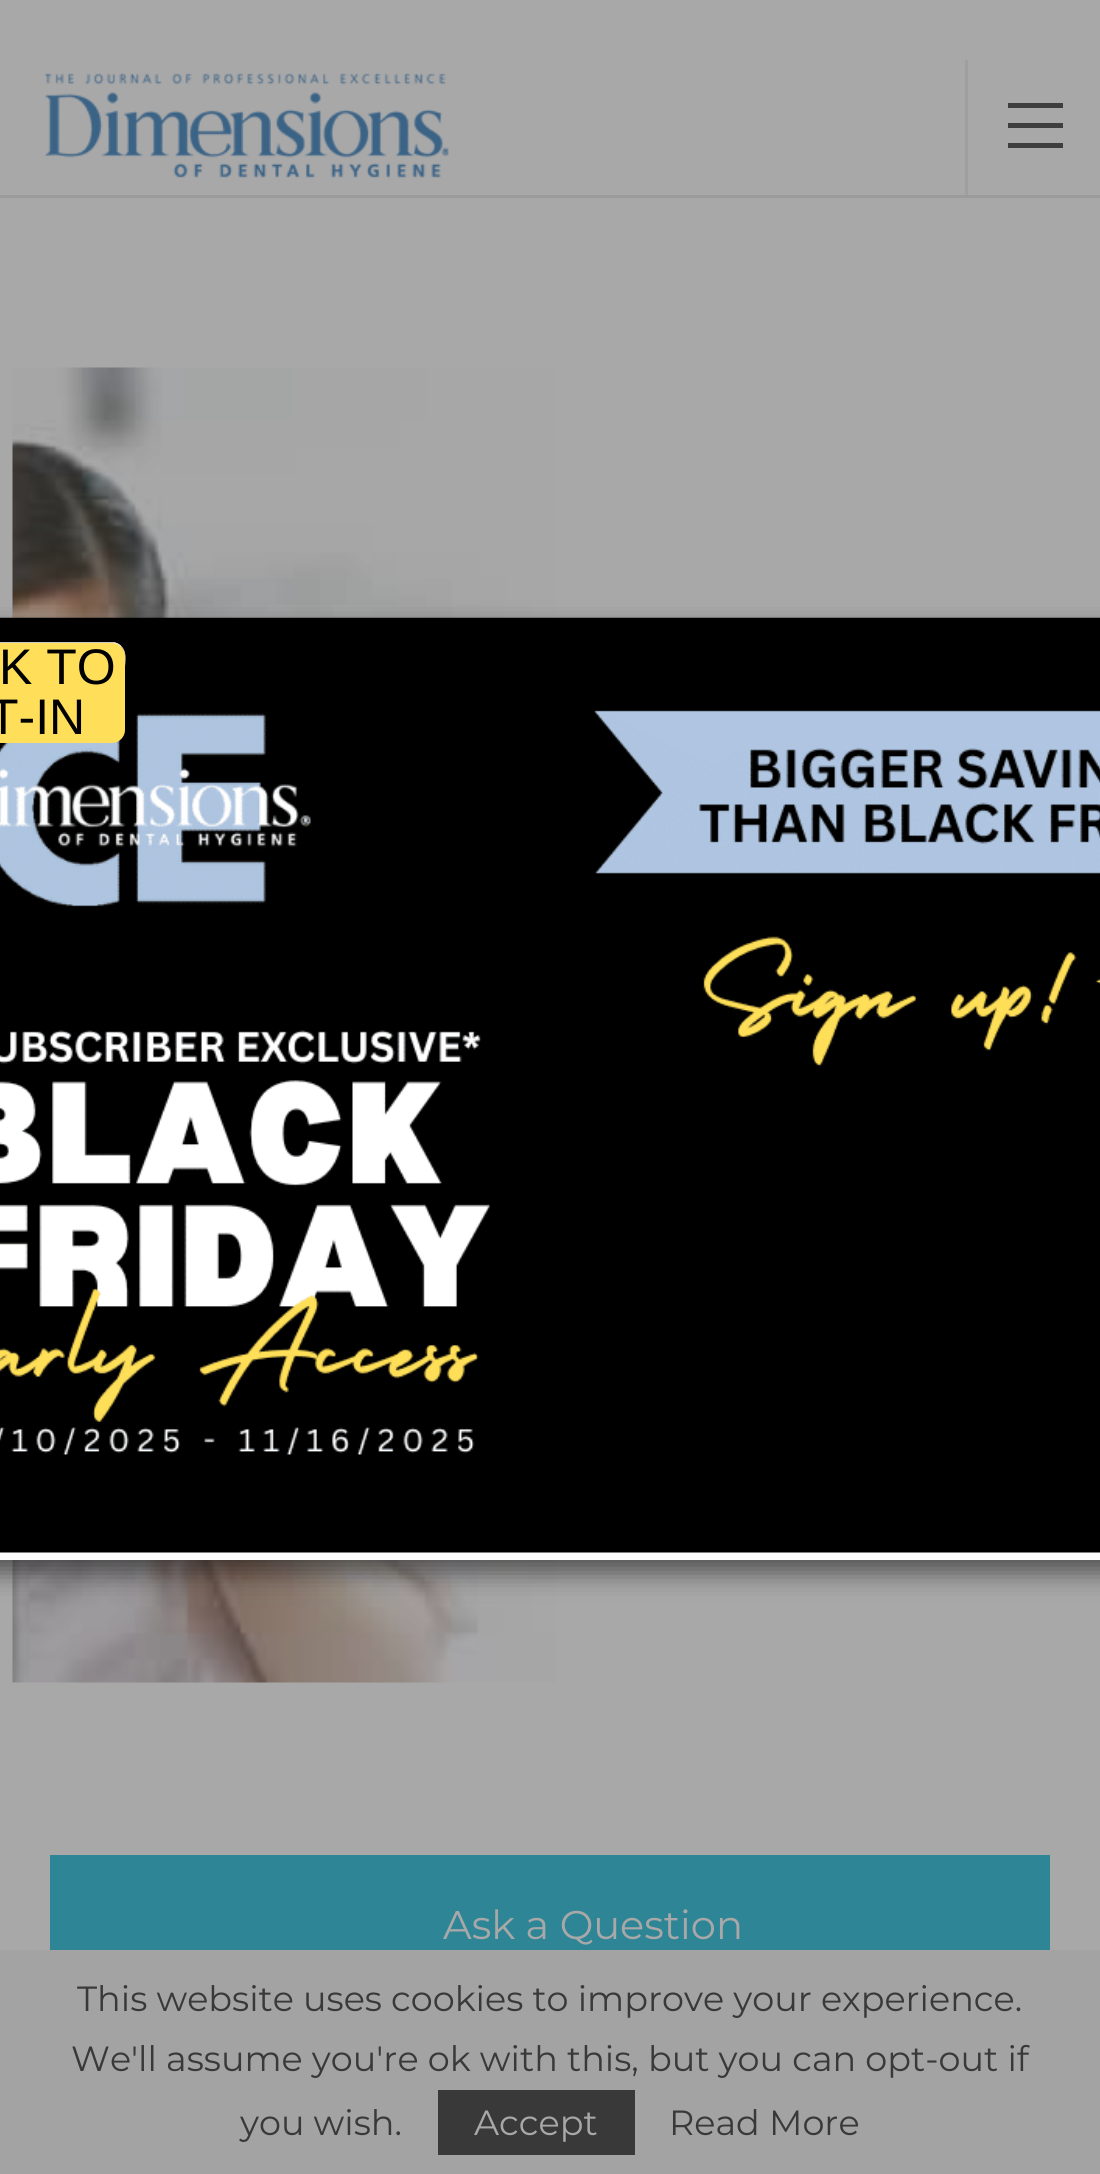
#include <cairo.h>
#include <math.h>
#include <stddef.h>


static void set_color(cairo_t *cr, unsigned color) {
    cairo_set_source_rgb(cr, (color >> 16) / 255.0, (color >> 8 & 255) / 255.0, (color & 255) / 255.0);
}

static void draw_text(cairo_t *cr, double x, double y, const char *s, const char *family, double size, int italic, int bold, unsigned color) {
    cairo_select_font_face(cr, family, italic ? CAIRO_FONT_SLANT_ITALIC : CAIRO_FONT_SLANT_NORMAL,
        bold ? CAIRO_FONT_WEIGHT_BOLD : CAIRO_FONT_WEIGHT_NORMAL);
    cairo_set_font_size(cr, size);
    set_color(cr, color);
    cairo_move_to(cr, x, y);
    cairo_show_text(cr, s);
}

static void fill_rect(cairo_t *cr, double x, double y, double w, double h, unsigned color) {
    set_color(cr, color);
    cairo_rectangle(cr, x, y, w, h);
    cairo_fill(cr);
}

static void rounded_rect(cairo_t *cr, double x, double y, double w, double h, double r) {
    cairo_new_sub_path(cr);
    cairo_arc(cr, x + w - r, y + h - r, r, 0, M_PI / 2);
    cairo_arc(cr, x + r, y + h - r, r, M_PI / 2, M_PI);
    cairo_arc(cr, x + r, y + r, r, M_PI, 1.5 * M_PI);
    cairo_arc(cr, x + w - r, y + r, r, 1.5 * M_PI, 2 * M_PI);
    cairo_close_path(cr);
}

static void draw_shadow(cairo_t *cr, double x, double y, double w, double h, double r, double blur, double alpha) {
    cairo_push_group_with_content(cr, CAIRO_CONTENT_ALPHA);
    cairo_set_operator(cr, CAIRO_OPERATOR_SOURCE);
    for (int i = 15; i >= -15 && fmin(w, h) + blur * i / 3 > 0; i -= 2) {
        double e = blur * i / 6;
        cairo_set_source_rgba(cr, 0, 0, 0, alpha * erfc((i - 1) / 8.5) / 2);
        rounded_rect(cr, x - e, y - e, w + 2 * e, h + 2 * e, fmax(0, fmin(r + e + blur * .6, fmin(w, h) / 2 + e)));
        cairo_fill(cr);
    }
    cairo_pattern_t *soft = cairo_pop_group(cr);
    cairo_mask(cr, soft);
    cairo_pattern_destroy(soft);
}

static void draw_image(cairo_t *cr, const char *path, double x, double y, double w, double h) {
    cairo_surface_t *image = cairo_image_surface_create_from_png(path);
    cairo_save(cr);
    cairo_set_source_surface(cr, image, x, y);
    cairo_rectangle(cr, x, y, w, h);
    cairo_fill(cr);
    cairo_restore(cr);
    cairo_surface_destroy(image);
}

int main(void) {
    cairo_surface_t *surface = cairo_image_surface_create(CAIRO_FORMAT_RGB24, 1100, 2174);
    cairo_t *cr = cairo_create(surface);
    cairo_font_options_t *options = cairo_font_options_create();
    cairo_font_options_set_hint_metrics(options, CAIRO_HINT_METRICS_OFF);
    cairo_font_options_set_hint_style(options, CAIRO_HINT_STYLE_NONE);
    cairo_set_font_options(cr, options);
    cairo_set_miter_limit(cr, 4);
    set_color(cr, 0xA8A8A8);
    cairo_paint(cr);
    draw_image(cr, "assets/img3.png", 12, 367, 544, 1316);
    set_color(cr, 0x000000);
    draw_shadow(cr, -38, 630, 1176, 943, 0, 12.5, 0.5);
    fill_rect(cr, 0, 1552, 1100, 8, 0xFEFEFE);
    draw_image(cr, "assets/img1.png", 0, 617, 1100, 936);
    cairo_new_path(cr);
    cairo_move_to(cr, 119.5, 648);
    cairo_curve_to(cr, 124.5, 652.5, 122.5, 661, 122.5, 666.5);
    cairo_line_to(cr, 122.5, 684);
    cairo_curve_to(cr, 122.5, 691.5, 122, 700, 112.5, 700);
    cairo_line_to(cr, -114.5, 700);
    cairo_curve_to(cr, -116.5, 699.5, -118, 698.5, -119.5, 697);
    set_color(cr, 0x9E9E9E);
    cairo_set_line_width(cr, 5);
    cairo_stroke(cr);
    cairo_new_path(cr);
    cairo_move_to(cr, -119.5, 697);
    cairo_curve_to(cr, -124.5, 692.5, -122.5, 684, -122.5, 678.5);
    cairo_line_to(cr, -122.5, 661);
    cairo_curve_to(cr, -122.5, 653.5, -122, 645, -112.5, 645);
    cairo_line_to(cr, 114.5, 645);
    cairo_curve_to(cr, 116.5, 645.5, 118, 646.5, 119.5, 648);
    set_color(cr, 0xEDEDED);
    cairo_stroke(cr);
    cairo_new_path(cr);
    cairo_move_to(cr, 119.5, 648);
    cairo_curve_to(cr, 124.5, 652.5, 122.5, 661, 122.5, 666.5);
    cairo_line_to(cr, 122.5, 684);
    cairo_curve_to(cr, 122.5, 691.5, 122, 700, 112.5, 700);
    cairo_line_to(cr, -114.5, 700);
    cairo_curve_to(cr, -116.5, 699.5, -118, 698.5, -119.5, 697);
    set_color(cr, 0x9E9E9E);
    cairo_stroke(cr);
    cairo_new_path(cr);
    cairo_move_to(cr, -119.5, 697);
    cairo_curve_to(cr, -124.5, 692.5, -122.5, 684, -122.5, 678.5);
    cairo_line_to(cr, -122.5, 661);
    cairo_curve_to(cr, -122.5, 653.5, -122, 645, -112.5, 645);
    cairo_line_to(cr, 114.5, 645);
    cairo_curve_to(cr, 116.5, 645.5, 118, 646.5, 119.5, 648);
    set_color(cr, 0xEDEDED);
    cairo_stroke(cr);
    cairo_new_path(cr);
    cairo_move_to(cr, 119.5, 648);
    cairo_curve_to(cr, 124.5, 652.5, 122.5, 661, 122.5, 666.5);
    cairo_line_to(cr, 122.5, 684);
    cairo_curve_to(cr, 122.5, 691.5, 122, 700, 112.5, 700);
    cairo_line_to(cr, -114.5, 700);
    cairo_curve_to(cr, -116.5, 699.5, -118, 698.5, -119.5, 697);
    set_color(cr, 0x9E9E9E);
    cairo_stroke(cr);
    cairo_new_path(cr);
    cairo_move_to(cr, -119.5, 697);
    cairo_curve_to(cr, -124.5, 692.5, -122.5, 684, -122.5, 678.5);
    cairo_line_to(cr, -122.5, 661);
    cairo_curve_to(cr, -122.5, 653.5, -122, 645, -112.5, 645);
    cairo_line_to(cr, 114.5, 645);
    cairo_curve_to(cr, 116.5, 645.5, 118, 646.5, 119.5, 648);
    set_color(cr, 0xEDEDED);
    cairo_stroke(cr);
    set_color(cr, 0xFFDE59);
    cairo_new_path(cr);
    cairo_move_to(cr, 0, 643);
    cairo_line_to(cr, 112, 643);
    cairo_curve_to(cr, 119, 643, 125, 649, 125, 656);
    cairo_line_to(cr, 125, 730);
    cairo_curve_to(cr, 125, 737, 119, 743, 112, 743);
    cairo_line_to(cr, 0, 743);
    cairo_close_path(cr);
    cairo_fill(cr);
    draw_text(cr, -1, 684, "K TO", "Liberation Sans", 50, 0, 0, 0x000000);
    draw_text(cr, -12, 734, "T-IN", "Liberation Sans", 50, 0, 0, 0x000000);
    fill_rect(cr, 0, 195, 1100, 3, 0x9B9B9B);
    draw_image(cr, "assets/img2.png", 45, 73, 404, 105);
    fill_rect(cr, 965, 60, 3, 135, 0x9F9F9F);
    fill_rect(cr, 1008, 123, 55, 5, 0x3E3E3E);
    fill_rect(cr, 1008, 103, 55, 5, 0x3E3E3E);
    fill_rect(cr, 1008, 143, 55, 5, 0x3E3E3E);
    fill_rect(cr, 50, 1855, 1000, 95, 0x2D8596);
    draw_text(cr, 443, 1939, "Ask a Question", "Montserrat Thin", 40, 0, 0, 0xA8A8A8);
    fill_rect(cr, 0, 1950, 1100, 224, 0xA3A3A3);
    draw_text(cr, 77, 2011, "This website uses cookies to improve your experience.", "Montserrat Thin", 35, 0, 0, 0x393939);
    draw_text(cr, 71, 2071, "We'll assume you're ok with this, but you can opt-out if", "Montserrat Thin", 35, 0, 0, 0x393939);
    draw_text(cr, 240, 2135, "you wish.", "Montserrat Thin", 35, 0, 0, 0x393939);
    fill_rect(cr, 438, 2090, 197, 65, 0x393939);
    draw_text(cr, 474, 2135, "Accept", "Montserrat Thin", 35, 0, 0, 0xA8A8A8);
    draw_text(cr, 669, 2135, "Read More", "Montserrat Thin", 35, 0, 0, 0x393939);
    cairo_surface_write_to_png(surface, "output.png");
    cairo_font_options_destroy(options);
    cairo_destroy(cr);
    cairo_surface_destroy(surface);
    return 0;
}
